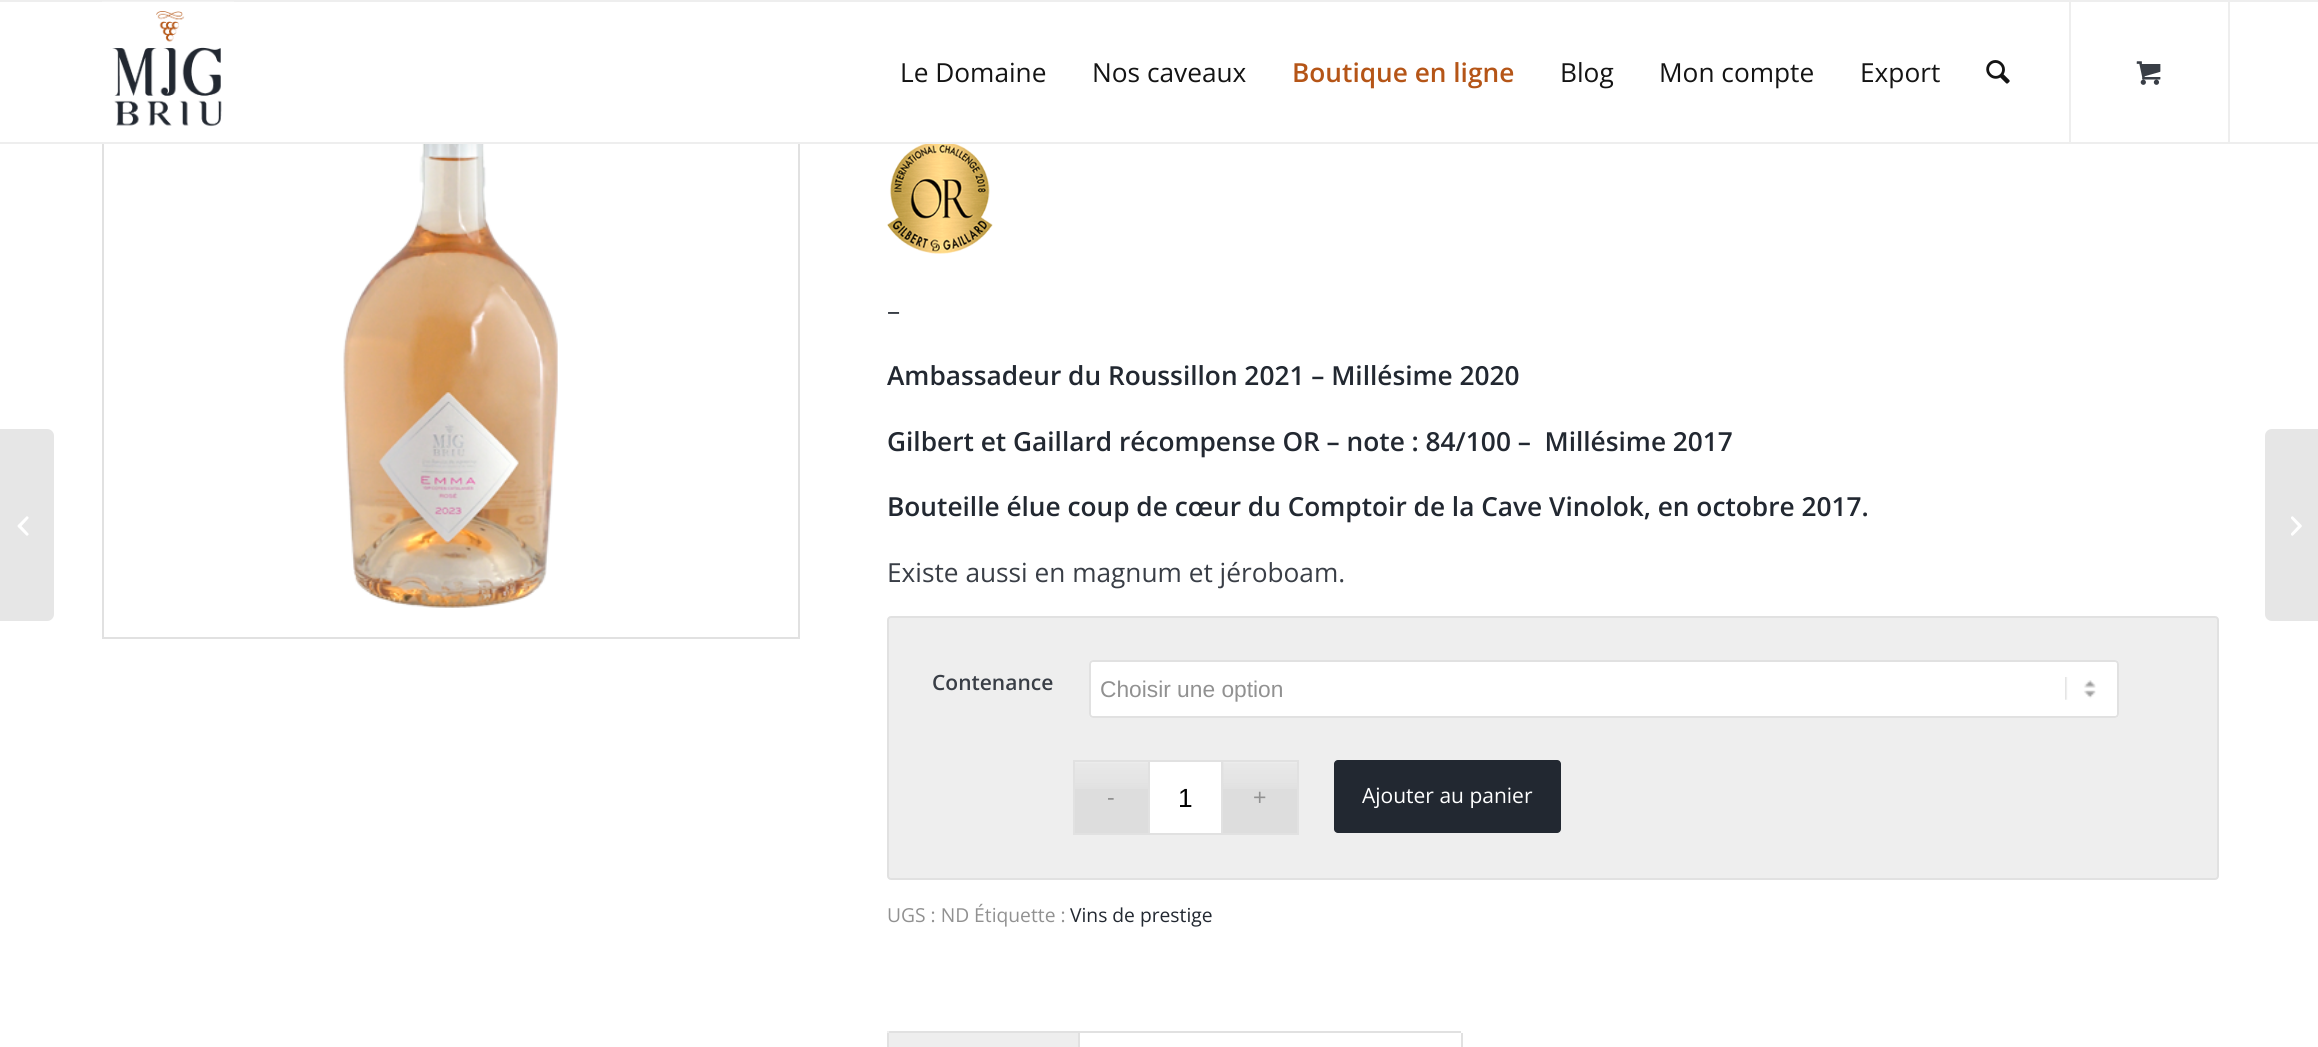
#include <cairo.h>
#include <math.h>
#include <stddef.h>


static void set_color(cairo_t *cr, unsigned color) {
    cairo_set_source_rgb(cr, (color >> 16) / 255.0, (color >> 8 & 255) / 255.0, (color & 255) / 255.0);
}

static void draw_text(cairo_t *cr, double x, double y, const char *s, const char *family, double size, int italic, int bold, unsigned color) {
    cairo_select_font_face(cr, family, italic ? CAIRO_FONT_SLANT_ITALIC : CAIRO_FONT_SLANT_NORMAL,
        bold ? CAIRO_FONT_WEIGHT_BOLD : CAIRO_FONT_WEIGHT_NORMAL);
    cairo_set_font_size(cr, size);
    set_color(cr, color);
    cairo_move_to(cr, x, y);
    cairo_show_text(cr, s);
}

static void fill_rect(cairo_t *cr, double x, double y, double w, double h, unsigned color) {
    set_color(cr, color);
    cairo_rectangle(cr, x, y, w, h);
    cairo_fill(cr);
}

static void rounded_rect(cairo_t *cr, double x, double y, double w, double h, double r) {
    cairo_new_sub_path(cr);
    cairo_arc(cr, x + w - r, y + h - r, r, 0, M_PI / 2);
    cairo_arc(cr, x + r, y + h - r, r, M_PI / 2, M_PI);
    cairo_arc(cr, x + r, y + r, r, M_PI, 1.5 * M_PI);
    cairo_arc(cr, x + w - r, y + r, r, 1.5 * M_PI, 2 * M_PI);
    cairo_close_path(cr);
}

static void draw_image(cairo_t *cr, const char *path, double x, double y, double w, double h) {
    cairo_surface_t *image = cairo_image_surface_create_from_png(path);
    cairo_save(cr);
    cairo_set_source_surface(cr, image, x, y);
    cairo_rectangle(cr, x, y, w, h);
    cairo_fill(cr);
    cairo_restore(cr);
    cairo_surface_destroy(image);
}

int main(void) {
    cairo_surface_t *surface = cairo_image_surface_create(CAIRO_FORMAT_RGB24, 2318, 1047);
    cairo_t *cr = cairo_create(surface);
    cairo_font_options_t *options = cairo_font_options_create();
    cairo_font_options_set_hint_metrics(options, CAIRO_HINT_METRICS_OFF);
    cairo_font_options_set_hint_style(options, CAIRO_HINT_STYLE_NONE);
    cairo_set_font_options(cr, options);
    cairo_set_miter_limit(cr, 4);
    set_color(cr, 0xFFFFFF);
    cairo_paint(cr);
    cairo_rectangle(cr, 103, -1, 696, 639);
    set_color(cr, 0xE1E1E1);
    cairo_stroke(cr);
    fill_rect(cr, 102, 2, 698, 140, 0xFFFFFF);
    fill_rect(cr, 0, 0, 2318, 2, 0xEEEEEE);
    fill_rect(cr, 0, 142, 2318, 2, 0xEEEEEE);
    draw_image(cr, "assets/img1.png", 102, 1, 132, 126);
    draw_text(cr, 900, 82, "Le Domaine", "Open Sans", 26.25, 0, 0, 0x141414);
    draw_text(cr, 1092, 82, "Nos caveaux", "Open Sans", 26.25, 0, 0, 0x141414);
    draw_text(cr, 1292, 82, "Boutique en ligne", "Open Sans SemiBold", 26.25, 0, 0, 0xB55517);
    draw_text(cr, 1560, 82, "Blog", "Open Sans", 26.25, 0, 0, 0x141414);
    draw_text(cr, 1659, 82, "Mon compte", "Open Sans", 26.25, 0, 0, 0x141414);
    draw_text(cr, 1860, 82, "Export", "Open Sans", 26.25, 0, 0, 0x141414);
    draw_image(cr, "assets/img2.png", 1986, 60, 24, 24);
    fill_rect(cr, 2228, 2, 2, 140, 0xEEEEEE);
    fill_rect(cr, 2069, 2, 2, 140, 0xEEEEEE);
    draw_image(cr, "assets/img3.png", 2136, 61, 25, 24);
    set_color(cr, 0xE6E6E6);
    cairo_new_path(cr);
    cairo_move_to(cr, 0, 429);
    cairo_line_to(cr, 47, 429);
    cairo_curve_to(cr, 51, 429, 54, 432, 54, 436);
    cairo_line_to(cr, 54, 614);
    cairo_curve_to(cr, 54, 618, 51, 621, 47, 621);
    cairo_line_to(cr, 0, 621);
    cairo_close_path(cr);
    cairo_fill(cr);
    draw_image(cr, "assets/img4.png", 17, 516, 12, 20);
    draw_image(cr, "assets/img5.png", 343, 144, 215, 464);
    draw_image(cr, "assets/img6.png", 887, 144, 106, 110);
    draw_text(cr, 887, 320, "–", "Open Sans", 26.25, 0, 0, 0x393E46);
    draw_text(cr, 887, 385, "Ambassadeur du Roussillon 2021 – Millésime 2020", "Open Sans SemiBold", 26.25, 0, 0, 0x222831);
    draw_text(cr, 887, 451, "Gilbert et Gaillard récompense OR – note : 84/100 –  Millésime 2017", "Open Sans SemiBold", 26.25, 0, 0, 0x222831);
    draw_text(cr, 887, 516, "Bouteille élue coup de cœur du Comptoir de la Cave Vinolok, en octobre 2017.", "Open Sans SemiBold", 26.25, 0, 0, 0x222831);
    draw_text(cr, 887, 582, "Existe aussi en magnum et jéroboam.", "Open Sans", 26.25, 0, 0, 0x393E46);
    set_color(cr, 0xEEEEEE);
    rounded_rect(cr, 888, 617, 1330, 262, 3);
    cairo_fill_preserve(cr);
    set_color(cr, 0xE1E1E1);
    cairo_stroke(cr);
    draw_text(cr, 932, 690, "Contenance", "Open Sans SemiBold", 21, 0, 0, 0x393E46);
    set_color(cr, 0xFFFFFF);
    rounded_rect(cr, 1089, 660, 1030, 58, 4);
    cairo_fill(cr);
    draw_image(cr, "assets/img7.png", 2065, 677, 31, 23);
    rounded_rect(cr, 1090, 661, 1028, 56, 3);
    set_color(cr, 0xE1E1E1);
    cairo_stroke(cr);
    draw_text(cr, 1100, 697, "Choisir une option", "Liberation Sans", 22.75, 0, 0, 0x919191);
    fill_rect(cr, 1075, 762, 73, 71, 0xDDDDDD);
    draw_image(cr, "assets/img8.png", 1075, 762, 73, 27);
    fill_rect(cr, 1223, 762, 74, 71, 0xDDDDDD);
    draw_image(cr, "assets/img9.png", 1223, 762, 74, 27);
    draw_text(cr, 1107, 805, "-", "Liberation Sans", 23, 0, 0, 0x919191);
    fill_rect(cr, 1073, 760, 75, 2, 0xE1E1E1);
    fill_rect(cr, 1073, 833, 75, 2, 0xE1E1E1);
    fill_rect(cr, 1073, 760, 2, 75, 0xE1E1E1);
    set_color(cr, 0xFFFFFF);
    cairo_rectangle(cr, 1149, 761, 73, 73);
    cairo_fill_preserve(cr);
    set_color(cr, 0xE1E1E1);
    cairo_stroke(cr);
    draw_text(cr, 1178, 807, "1", "Liberation Sans", 26.25, 0, 0, 0x000000);
    draw_text(cr, 1253, 805, "+", "Liberation Sans", 23, 0, 0, 0x919191);
    fill_rect(cr, 1223, 760, 76, 2, 0xE1E1E1);
    fill_rect(cr, 1297, 760, 2, 75, 0xE1E1E1);
    fill_rect(cr, 1223, 833, 76, 2, 0xE1E1E1);
    set_color(cr, 0x222831);
    rounded_rect(cr, 1334, 760, 227, 73, 4);
    cairo_fill(cr);
    draw_text(cr, 1362, 803, "Ajouter au panier", "Open Sans", 21, 0, 0, 0xFFFFFF);
    draw_text(cr, 887, 922, "UGS : ND Étiquette :", "Open Sans", 19.25, 0, 0, 0x919191);
    draw_text(cr, 1070, 922, "Vins de prestige", "Open Sans", 19.25, 0, 0, 0x222831);
    fill_rect(cr, 887, 1031, 191, 16, 0xEEEEEE);
    fill_rect(cr, 1078, 1031, 383, 2, 0xE1E1E1);
    fill_rect(cr, 889, 1031, 191, 2, 0xE1E1E1);
    fill_rect(cr, 1078, 1031, 2, 16, 0xE1E1E1);
    fill_rect(cr, 887, 1033, 2, 14, 0xE1E1E1);
    fill_rect(cr, 1461, 1033, 2, 14, 0xE1E1E1);
    set_color(cr, 0xE6E6E6);
    cairo_new_path(cr);
    cairo_move_to(cr, 2272, 429);
    cairo_line_to(cr, 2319, 429);
    cairo_line_to(cr, 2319, 621);
    cairo_line_to(cr, 2272, 621);
    cairo_curve_to(cr, 2268, 621, 2265, 618, 2265, 614);
    cairo_line_to(cr, 2265, 436);
    cairo_curve_to(cr, 2265, 432, 2268, 429, 2272, 429);
    cairo_close_path(cr);
    cairo_fill(cr);
    draw_image(cr, "assets/img10.png", 2291, 516, 11, 20);
    cairo_surface_write_to_png(surface, "output.png");
    cairo_font_options_destroy(options);
    cairo_destroy(cr);
    cairo_surface_destroy(surface);
    return 0;
}
